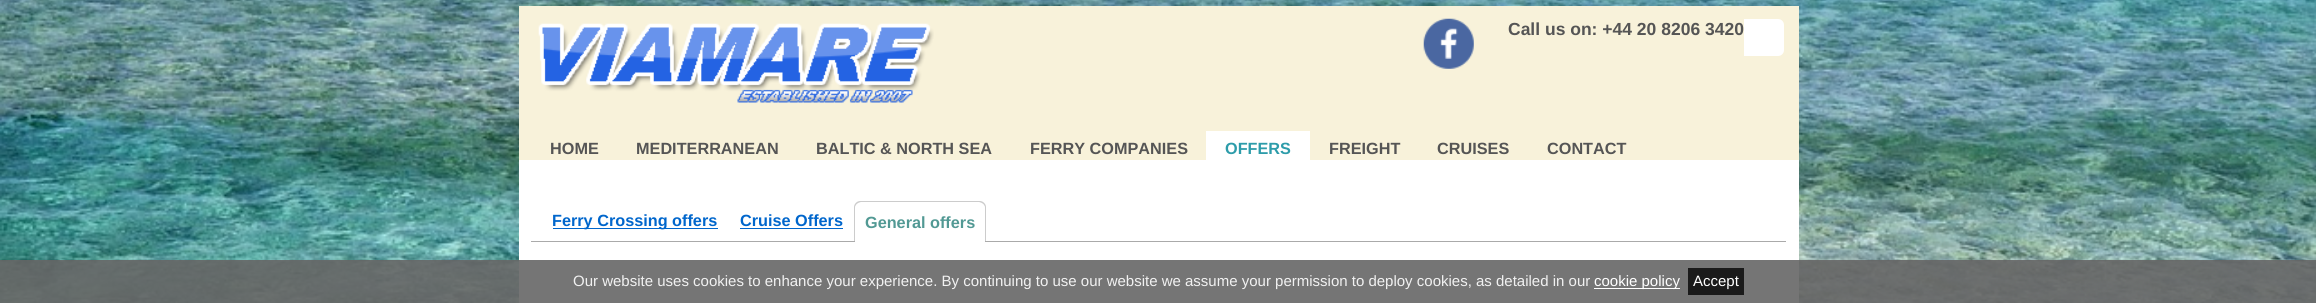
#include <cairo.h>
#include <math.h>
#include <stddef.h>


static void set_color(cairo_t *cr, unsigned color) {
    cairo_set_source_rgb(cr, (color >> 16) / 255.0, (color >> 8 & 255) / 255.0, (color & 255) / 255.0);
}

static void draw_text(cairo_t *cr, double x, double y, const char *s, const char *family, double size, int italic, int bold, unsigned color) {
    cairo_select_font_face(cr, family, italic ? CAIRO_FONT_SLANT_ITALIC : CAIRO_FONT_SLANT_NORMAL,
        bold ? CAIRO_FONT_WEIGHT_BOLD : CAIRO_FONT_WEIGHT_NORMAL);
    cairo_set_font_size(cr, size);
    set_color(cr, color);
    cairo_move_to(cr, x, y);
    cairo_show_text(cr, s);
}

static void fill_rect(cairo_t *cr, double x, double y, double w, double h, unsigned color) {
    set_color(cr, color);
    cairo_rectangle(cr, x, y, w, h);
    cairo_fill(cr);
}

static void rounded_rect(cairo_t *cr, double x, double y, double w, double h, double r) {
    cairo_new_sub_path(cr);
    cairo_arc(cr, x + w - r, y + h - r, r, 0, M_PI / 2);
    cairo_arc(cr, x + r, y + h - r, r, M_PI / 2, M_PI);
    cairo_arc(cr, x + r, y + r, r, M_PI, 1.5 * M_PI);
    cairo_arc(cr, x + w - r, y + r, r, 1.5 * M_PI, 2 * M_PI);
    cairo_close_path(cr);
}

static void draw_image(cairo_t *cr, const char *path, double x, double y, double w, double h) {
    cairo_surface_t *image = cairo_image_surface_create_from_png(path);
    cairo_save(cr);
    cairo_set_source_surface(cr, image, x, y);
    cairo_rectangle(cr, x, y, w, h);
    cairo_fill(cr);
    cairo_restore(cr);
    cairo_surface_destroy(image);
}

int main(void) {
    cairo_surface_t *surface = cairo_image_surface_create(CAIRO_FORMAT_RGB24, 2316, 303);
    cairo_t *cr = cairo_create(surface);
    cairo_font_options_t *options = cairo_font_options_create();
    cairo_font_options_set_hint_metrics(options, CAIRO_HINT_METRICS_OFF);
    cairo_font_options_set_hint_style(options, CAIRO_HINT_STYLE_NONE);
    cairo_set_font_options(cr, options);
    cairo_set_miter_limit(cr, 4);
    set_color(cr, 0xFFFFFF);
    cairo_paint(cr);
    draw_image(cr, "assets/img1.png", 0, 0, 2316, 303);
    fill_rect(cr, 519, 160, 1280, 143, 0xFFFFFF);
    fill_rect(cr, 519, 6, 1280, 154, 0xF8F2DA);
    draw_image(cr, "assets/img2.png", 538, 23, 396, 80);
    draw_image(cr, "assets/img3.png", 1423, 18, 51, 51);
    set_color(cr, 0xFFFFFF);
    rounded_rect(cr, 1509, 19, 275, 37, 6);
    cairo_fill(cr);
    fill_rect(cr, 1509, 19, 235, 37, 0xF8F2DA);
    draw_text(cr, 1508, 35, "Call us on: +44 20 8206 3420", "Liberation Sans", 17.5, 0, 1, 0x555555);
    draw_text(cr, 550, 154, "HOME", "Liberation Sans", 16.25, 0, 1, 0x555555);
    draw_text(cr, 636, 154, "MEDITERRANEAN", "Liberation Sans", 16.25, 0, 1, 0x555555);
    draw_text(cr, 816, 154, "BALTIC & NORTH SEA", "Liberation Sans", 16.25, 0, 1, 0x555555);
    draw_text(cr, 1030, 154, "FERRY COMPANIES", "Liberation Sans", 16.25, 0, 1, 0x555555);
    fill_rect(cr, 1206, 131, 104, 29, 0xFFFFFF);
    draw_text(cr, 1225, 154, "OFFERS", "Liberation Sans", 16.25, 0, 1, 0x2D9CAA);
    draw_text(cr, 1329, 154, "FREIGHT", "Liberation Sans", 16.25, 0, 1, 0x555555);
    draw_text(cr, 1437, 154, "CRUISES", "Liberation Sans", 16.25, 0, 1, 0x555555);
    draw_text(cr, 1547, 154, "CONTACT", "Liberation Sans", 16.25, 0, 1, 0x555555);
    fill_rect(cr, 531, 241, 1255, 1, 0xAAAAAA);
    fill_rect(cr, 553, 228, 165, 1, 0x0066CC);
    draw_text(cr, 552, 226, "Ferry Crossing offers", "Liberation Sans", 16.25, 0, 1, 0x0066CC);
    draw_text(cr, 740, 226, "Cruise Offers", "Liberation Sans", 16.25, 0, 1, 0x0066CC);
    fill_rect(cr, 740, 228, 103, 1, 0x0066CC);
    set_color(cr, 0xCCCCCC);
    cairo_new_path(cr);
    cairo_move_to(cr, 862, 201);
    cairo_curve_to(cr, 860, 201, 858, 202, 857, 204);
    cairo_curve_to(cr, 858, 203, 859, 202, 861, 202);
    cairo_line_to(cr, 979, 202);
    cairo_curve_to(cr, 982, 202, 985, 205, 985, 208);
    cairo_line_to(cr, 985, 241);
    cairo_line_to(cr, 986, 241);
    cairo_line_to(cr, 986, 207);
    cairo_curve_to(cr, 986, 204, 983, 201, 980, 201);
    cairo_close_path(cr);
    cairo_fill(cr);
    cairo_new_path(cr);
    cairo_move_to(cr, 860, 201);
    cairo_curve_to(cr, 857, 201, 854, 204, 854, 207);
    cairo_line_to(cr, 854, 241);
    cairo_line_to(cr, 855, 241);
    cairo_line_to(cr, 855, 208);
    cairo_curve_to(cr, 855, 205, 858, 202, 861, 202);
    cairo_line_to(cr, 979, 202);
    cairo_curve_to(cr, 981, 202, 982, 203, 983, 204);
    cairo_curve_to(cr, 982, 202, 980, 201, 978, 201);
    cairo_close_path(cr);
    cairo_fill(cr);
    set_color(cr, 0xFFFFFF);
    cairo_new_path(cr);
    cairo_move_to(cr, 861, 203);
    cairo_line_to(cr, 979, 203);
    cairo_curve_to(cr, 982.5, 203, 985, 205.5, 985, 209);
    cairo_line_to(cr, 985, 243);
    cairo_line_to(cr, 855, 243);
    cairo_line_to(cr, 855, 209);
    cairo_curve_to(cr, 855, 205.5, 857.5, 203, 861, 203);
    cairo_close_path(cr);
    cairo_fill(cr);
    draw_text(cr, 865, 228, "General offers", "Liberation Sans", 16.25, 0, 1, 0x529994);
    cairo_set_source_rgba(cr, 0.4, 0.4, 0.4, 0.9);
    cairo_rectangle(cr, 0, 260, 2316, 43);
    cairo_fill(cr);
    draw_text(cr, 573, 286, "Our website uses cookies to enhance your experience. By continuing to use our website we assume your permission to deploy cookies, as detailed in our", "Liberation Sans", 15, 0, 0, 0xF1F1F1);
    fill_rect(cr, 1594, 288, 86, 1, 0xFFFFFF);
    draw_text(cr, 1594, 286, "cookie policy", "Liberation Sans", 15, 0, 0, 0xFFFFFF);
    fill_rect(cr, 1688, 268, 56, 27, 0x1A1A1A);
    draw_text(cr, 1693, 286, "Accept", "Liberation Sans", 15, 0, 0, 0xFFFFFF);
    cairo_surface_write_to_png(surface, "output.png");
    cairo_font_options_destroy(options);
    cairo_destroy(cr);
    cairo_surface_destroy(surface);
    return 0;
}
